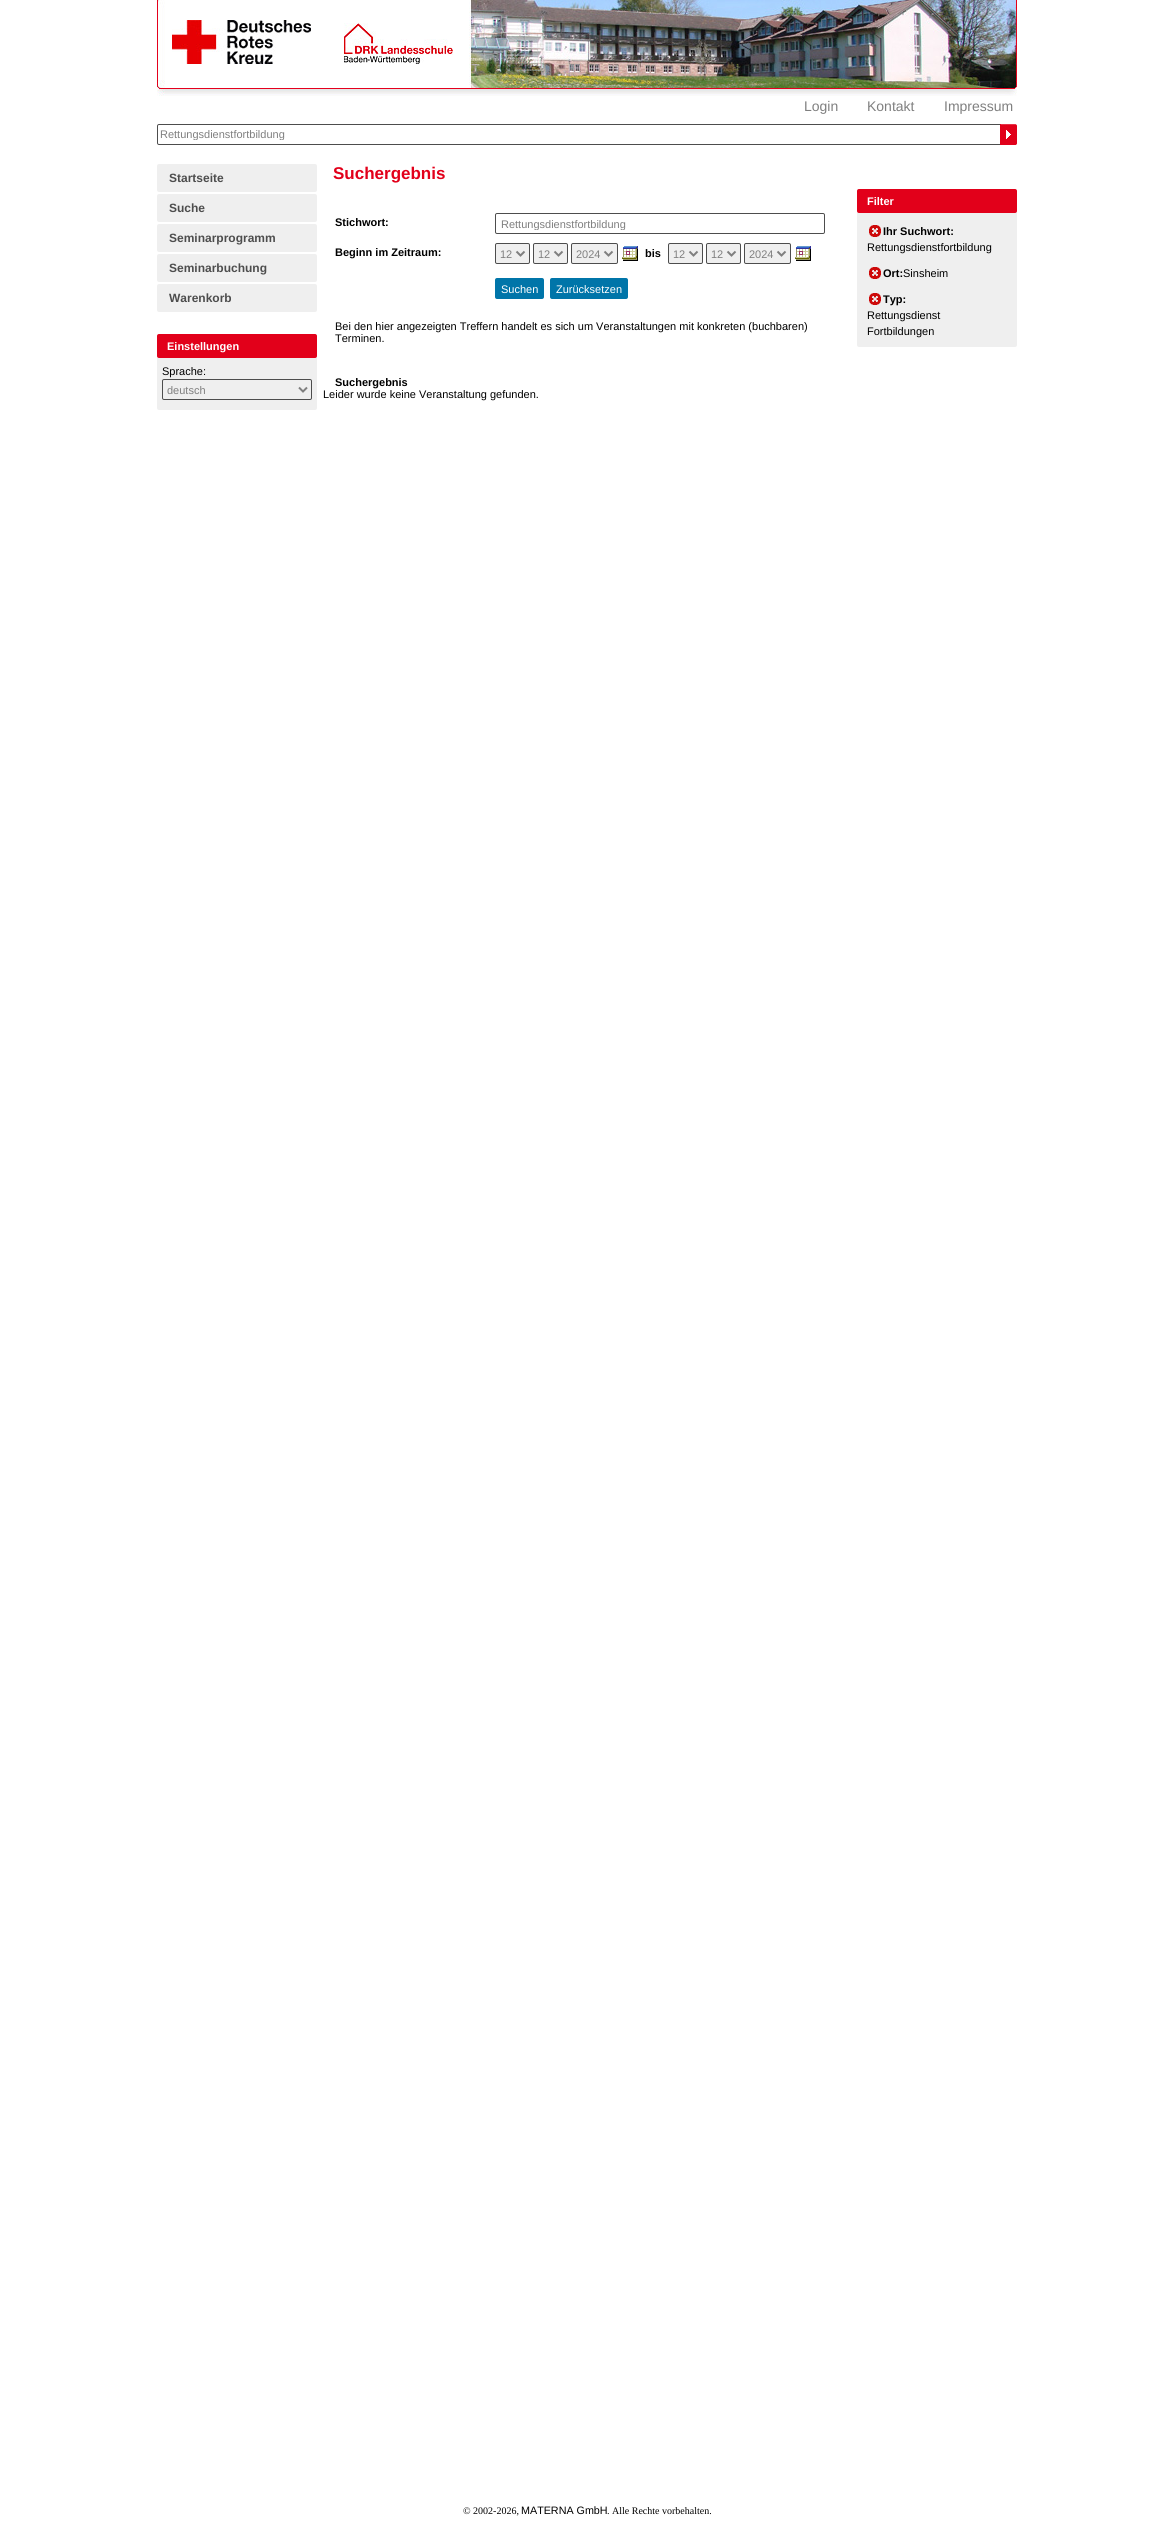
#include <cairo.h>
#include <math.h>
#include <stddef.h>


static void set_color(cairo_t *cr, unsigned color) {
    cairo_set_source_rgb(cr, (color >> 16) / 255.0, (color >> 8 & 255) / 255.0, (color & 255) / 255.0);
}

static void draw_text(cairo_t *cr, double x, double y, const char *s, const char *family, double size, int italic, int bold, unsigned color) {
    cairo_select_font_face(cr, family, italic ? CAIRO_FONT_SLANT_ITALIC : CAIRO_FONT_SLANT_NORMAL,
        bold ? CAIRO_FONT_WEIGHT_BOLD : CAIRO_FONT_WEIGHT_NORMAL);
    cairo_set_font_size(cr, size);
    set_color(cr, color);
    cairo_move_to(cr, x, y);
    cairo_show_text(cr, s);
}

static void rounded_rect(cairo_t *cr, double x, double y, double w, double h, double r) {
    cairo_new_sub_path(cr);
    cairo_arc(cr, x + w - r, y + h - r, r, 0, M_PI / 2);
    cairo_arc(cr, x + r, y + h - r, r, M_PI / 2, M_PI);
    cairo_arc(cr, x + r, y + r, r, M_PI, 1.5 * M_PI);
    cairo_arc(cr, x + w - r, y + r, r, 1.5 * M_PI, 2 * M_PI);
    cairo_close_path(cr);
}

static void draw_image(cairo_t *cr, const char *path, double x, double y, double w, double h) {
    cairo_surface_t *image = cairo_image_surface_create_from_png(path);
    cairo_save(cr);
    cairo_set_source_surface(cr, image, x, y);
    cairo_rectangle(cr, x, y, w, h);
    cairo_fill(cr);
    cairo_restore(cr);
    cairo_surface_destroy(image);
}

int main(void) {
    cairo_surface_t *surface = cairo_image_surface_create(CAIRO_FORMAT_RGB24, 1174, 2521);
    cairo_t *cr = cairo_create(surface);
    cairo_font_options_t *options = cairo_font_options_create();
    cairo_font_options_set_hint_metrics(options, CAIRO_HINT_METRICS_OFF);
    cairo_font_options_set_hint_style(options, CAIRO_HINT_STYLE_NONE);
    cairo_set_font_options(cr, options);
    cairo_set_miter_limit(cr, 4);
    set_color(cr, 0xFFFFFF);
    cairo_paint(cr);
    draw_image(cr, "assets/img1.png", 157, 0, 860, 96);
    draw_image(cr, "assets/img2.png", 172, 20, 139, 44);
    draw_image(cr, "assets/img3.png", 344, 23, 109, 41);
    draw_text(cr, 804, 111, "Login", "Liberation Sans", 14, 0, 0, 0x7F7F7F);
    draw_text(cr, 867, 111, "Kontakt", "Liberation Sans", 14, 0, 0, 0x7F7F7F);
    draw_text(cr, 944, 111, "Impressum", "Liberation Sans", 14, 0, 0, 0x7F7F7F);
    draw_image(cr, "assets/img4.png", 1000, 124, 17, 21);
    cairo_save(cr);
    cairo_rectangle(cr, 157, 124, 843, 25);
    cairo_clip(cr);
    rounded_rect(cr, 157.5, 124.5, 844, 20, 1.5);
    set_color(cr, 0x4D4D4D);
    cairo_set_line_width(cr, 1);
    cairo_stroke(cr);
    cairo_restore(cr);
    cairo_save(cr);
    cairo_rectangle(cr, 160, 128, 839, 12);
    cairo_clip(cr);
    draw_text(cr, 160, 138, "Rettungsdienstfortbildung", "Liberation Sans", 11, 0, 0, 0x7F7F7F);
    cairo_restore(cr);
    draw_image(cr, "assets/img5.png", 1000, 124, 17, 21);
    set_color(cr, 0xEFEFEF);
    rounded_rect(cr, 157, 164, 160, 28, 2);
    cairo_fill(cr);
    draw_text(cr, 169, 182, "Startseite", "Liberation Sans", 12, 0, 1, 0x4D4D4D);
    set_color(cr, 0xEFEFEF);
    rounded_rect(cr, 157, 194, 160, 28, 2);
    cairo_fill(cr);
    draw_text(cr, 169, 212, "Suche", "Liberation Sans", 12, 0, 1, 0x4D4D4D);
    set_color(cr, 0xEFEFEF);
    rounded_rect(cr, 157, 224, 160, 28, 2);
    cairo_fill(cr);
    draw_text(cr, 169, 242, "Seminarprogramm", "Liberation Sans", 12, 0, 1, 0x4D4D4D);
    set_color(cr, 0xEFEFEF);
    rounded_rect(cr, 157, 254, 160, 28, 2);
    cairo_fill(cr);
    draw_text(cr, 169, 272, "Seminarbuchung", "Liberation Sans", 12, 0, 1, 0x4D4D4D);
    set_color(cr, 0xEFEFEF);
    rounded_rect(cr, 157, 284, 160, 28, 2);
    cairo_fill(cr);
    draw_text(cr, 169, 302, "Warenkorb", "Liberation Sans", 12, 0, 1, 0x4D4D4D);
    set_color(cr, 0xEFEFEF);
    rounded_rect(cr, 157, 334, 160, 76, 2);
    cairo_fill(cr);
    set_color(cr, 0xE2001A);
    rounded_rect(cr, 157, 334, 160, 24, 2);
    cairo_fill(cr);
    draw_text(cr, 167, 350, "Einstellungen", "Liberation Sans", 11, 0, 1, 0xFFFFFF);
    draw_text(cr, 162, 375, "Sprache:", "Liberation Sans", 11, 0, 0, 0x000000);
    rounded_rect(cr, 162.5, 379.5, 149, 20, 1.5);
    set_color(cr, 0x4D4D4D);
    cairo_set_line_width(cr, 1);
    cairo_stroke(cr);
    cairo_new_path(cr);
    cairo_move_to(cr, 299, 387.5);
    cairo_line_to(cr, 303, 391.5);
    cairo_line_to(cr, 307, 387.5);
    set_color(cr, 0x7F7F7F);
    cairo_set_line_width(cr, 2);
    cairo_stroke(cr);
    draw_text(cr, 167, 394, "deutsch", "Liberation Sans", 11, 0, 0, 0x7F7F7F);
    draw_text(cr, 333, 179, "Suchergebnis", "Liberation Sans", 17, 0, 1, 0xE2001A);
    draw_text(cr, 335, 226, "Stichwort:", "Liberation Sans", 11, 0, 1, 0x000000);
    rounded_rect(cr, 495.5, 213.5, 329, 20, 1.5);
    set_color(cr, 0x4D4D4D);
    cairo_set_line_width(cr, 1);
    cairo_stroke(cr);
    cairo_save(cr);
    cairo_rectangle(cr, 501, 218, 318, 12);
    cairo_clip(cr);
    draw_text(cr, 501, 228, "Rettungsdienstfortbildung", "Liberation Sans", 11, 0, 0, 0x7F7F7F);
    cairo_restore(cr);
    draw_text(cr, 335, 256, "Beginn im Zeitraum:", "Liberation Sans", 11, 0, 1, 0x000000);
    set_color(cr, 0xEFEFEF);
    rounded_rect(cr, 495.5, 243.5, 34, 20, 1.5);
    cairo_fill_preserve(cr);
    set_color(cr, 0x4D4D4D);
    cairo_stroke(cr);
    cairo_new_path(cr);
    cairo_move_to(cr, 516.5, 251.5);
    cairo_line_to(cr, 520.5, 255.5);
    cairo_line_to(cr, 524.5, 251.5);
    set_color(cr, 0x7F7F7F);
    cairo_set_line_width(cr, 2);
    cairo_stroke(cr);
    draw_text(cr, 500, 258, "12", "Liberation Sans", 11, 0, 0, 0x7F7F7F);
    set_color(cr, 0xEFEFEF);
    rounded_rect(cr, 533.5, 243.5, 34, 20, 1.5);
    cairo_fill_preserve(cr);
    set_color(cr, 0x4D4D4D);
    cairo_set_line_width(cr, 1);
    cairo_stroke(cr);
    cairo_new_path(cr);
    cairo_move_to(cr, 554.5, 251.5);
    cairo_line_to(cr, 558.5, 255.5);
    cairo_line_to(cr, 562.5, 251.5);
    set_color(cr, 0x7F7F7F);
    cairo_set_line_width(cr, 2);
    cairo_stroke(cr);
    draw_text(cr, 538, 258, "12", "Liberation Sans", 11, 0, 0, 0x7F7F7F);
    set_color(cr, 0xEFEFEF);
    rounded_rect(cr, 571.5, 243.5, 46, 20, 1.5);
    cairo_fill_preserve(cr);
    set_color(cr, 0x4D4D4D);
    cairo_set_line_width(cr, 1);
    cairo_stroke(cr);
    cairo_new_path(cr);
    cairo_move_to(cr, 604.5, 251.5);
    cairo_line_to(cr, 608.5, 255.5);
    cairo_line_to(cr, 612.5, 251.5);
    set_color(cr, 0x7F7F7F);
    cairo_set_line_width(cr, 2);
    cairo_stroke(cr);
    draw_text(cr, 576, 258, "2024", "Liberation Sans", 11, 0, 0, 0x7F7F7F);
    draw_image(cr, "assets/img6.png", 622, 246, 16, 15);
    draw_text(cr, 645, 257, "bis", "Liberation Sans", 11, 0, 1, 0x000000);
    set_color(cr, 0xEFEFEF);
    rounded_rect(cr, 668.5, 243.5, 34, 20, 1.5);
    cairo_fill_preserve(cr);
    set_color(cr, 0x4D4D4D);
    cairo_set_line_width(cr, 1);
    cairo_stroke(cr);
    cairo_new_path(cr);
    cairo_move_to(cr, 689.5, 251.5);
    cairo_line_to(cr, 693.5, 255.5);
    cairo_line_to(cr, 697.5, 251.5);
    set_color(cr, 0x7F7F7F);
    cairo_set_line_width(cr, 2);
    cairo_stroke(cr);
    draw_text(cr, 673, 258, "12", "Liberation Sans", 11, 0, 0, 0x7F7F7F);
    set_color(cr, 0xEFEFEF);
    rounded_rect(cr, 706.5, 243.5, 34, 20, 1.5);
    cairo_fill_preserve(cr);
    set_color(cr, 0x4D4D4D);
    cairo_set_line_width(cr, 1);
    cairo_stroke(cr);
    cairo_new_path(cr);
    cairo_move_to(cr, 727.5, 251.5);
    cairo_line_to(cr, 731.5, 255.5);
    cairo_line_to(cr, 735.5, 251.5);
    set_color(cr, 0x7F7F7F);
    cairo_set_line_width(cr, 2);
    cairo_stroke(cr);
    draw_text(cr, 711, 258, "12", "Liberation Sans", 11, 0, 0, 0x7F7F7F);
    set_color(cr, 0xEFEFEF);
    rounded_rect(cr, 744.5, 243.5, 46, 20, 1.5);
    cairo_fill_preserve(cr);
    set_color(cr, 0x4D4D4D);
    cairo_set_line_width(cr, 1);
    cairo_stroke(cr);
    cairo_new_path(cr);
    cairo_move_to(cr, 777.5, 251.5);
    cairo_line_to(cr, 781.5, 255.5);
    cairo_line_to(cr, 785.5, 251.5);
    set_color(cr, 0x7F7F7F);
    cairo_set_line_width(cr, 2);
    cairo_stroke(cr);
    draw_text(cr, 749, 258, "2024", "Liberation Sans", 11, 0, 0, 0x7F7F7F);
    draw_image(cr, "assets/img6.png", 795, 246, 16, 15);
    set_color(cr, 0x0075A9);
    rounded_rect(cr, 495, 278, 49, 21, 2);
    cairo_fill(cr);
    draw_text(cr, 501, 293, "Suchen", "Liberation Sans", 11, 0, 0, 0xFFFFFF);
    set_color(cr, 0x0075A9);
    rounded_rect(cr, 550, 278, 78, 21, 2);
    cairo_fill(cr);
    draw_text(cr, 556, 293, "Zurücksetzen", "Liberation Sans", 11, 0, 0, 0xFFFFFF);
    draw_text(cr, 335, 330, "Bei den hier angezeigten Treffern handelt es sich um Veranstaltungen mit konkreten (buchbaren)", "Liberation Sans", 11, 0, 0, 0x000000);
    draw_text(cr, 335, 342, "Terminen.", "Liberation Sans", 11, 0, 0, 0x000000);
    draw_text(cr, 335, 386, "Suchergebnis", "Liberation Sans", 11, 0, 1, 0x000000);
    draw_text(cr, 323, 398, "Leider wurde keine Veranstaltung gefunden.", "Liberation Sans", 11, 0, 0, 0x000000);
    set_color(cr, 0xEFEFEF);
    rounded_rect(cr, 857, 189, 160, 158, 2);
    cairo_fill(cr);
    set_color(cr, 0xE2001A);
    rounded_rect(cr, 857, 189, 160, 24, 2);
    cairo_fill(cr);
    draw_text(cr, 867, 205, "Filter", "Liberation Sans", 11, 0, 1, 0xFFFFFF);
    draw_image(cr, "assets/img7.png", 869, 225, 12, 12);
    draw_text(cr, 883, 235, "Ihr Suchwort:", "Liberation Sans", 11, 0, 1, 0x000000);
    draw_text(cr, 867, 251, "Rettungsdienstfortbildung", "Liberation Sans", 11, 0, 0, 0x000000);
    draw_image(cr, "assets/img7.png", 869, 267, 12, 12);
    draw_text(cr, 883, 277, "Ort:", "Liberation Sans", 11, 0, 1, 0x000000);
    draw_text(cr, 903, 277, "Sinsheim", "Liberation Sans", 11, 0, 0, 0x000000);
    draw_image(cr, "assets/img7.png", 869, 293, 12, 12);
    draw_text(cr, 883, 303, "Typ:", "Liberation Sans", 11, 0, 1, 0x000000);
    draw_text(cr, 867, 319, "Rettungsdienst", "Liberation Sans", 11, 0, 0, 0x000000);
    draw_text(cr, 867, 335, "Fortbildungen", "Liberation Sans", 11, 0, 0, 0x000000);
    draw_text(cr, 463, 2514, "© 2002-2026,", "Liberation Serif", 10, 0, 0, 0x000000);
    draw_text(cr, 521, 2514, "MATERNA GmbH", "Liberation Sans", 10.75, 0, 0, 0x000000);
    draw_text(cr, 607, 2514, ". Alle Rechte vorbehalten.", "Liberation Serif", 10, 0, 0, 0x000000);
    cairo_surface_write_to_png(surface, "output.png");
    cairo_font_options_destroy(options);
    cairo_destroy(cr);
    cairo_surface_destroy(surface);
    return 0;
}
